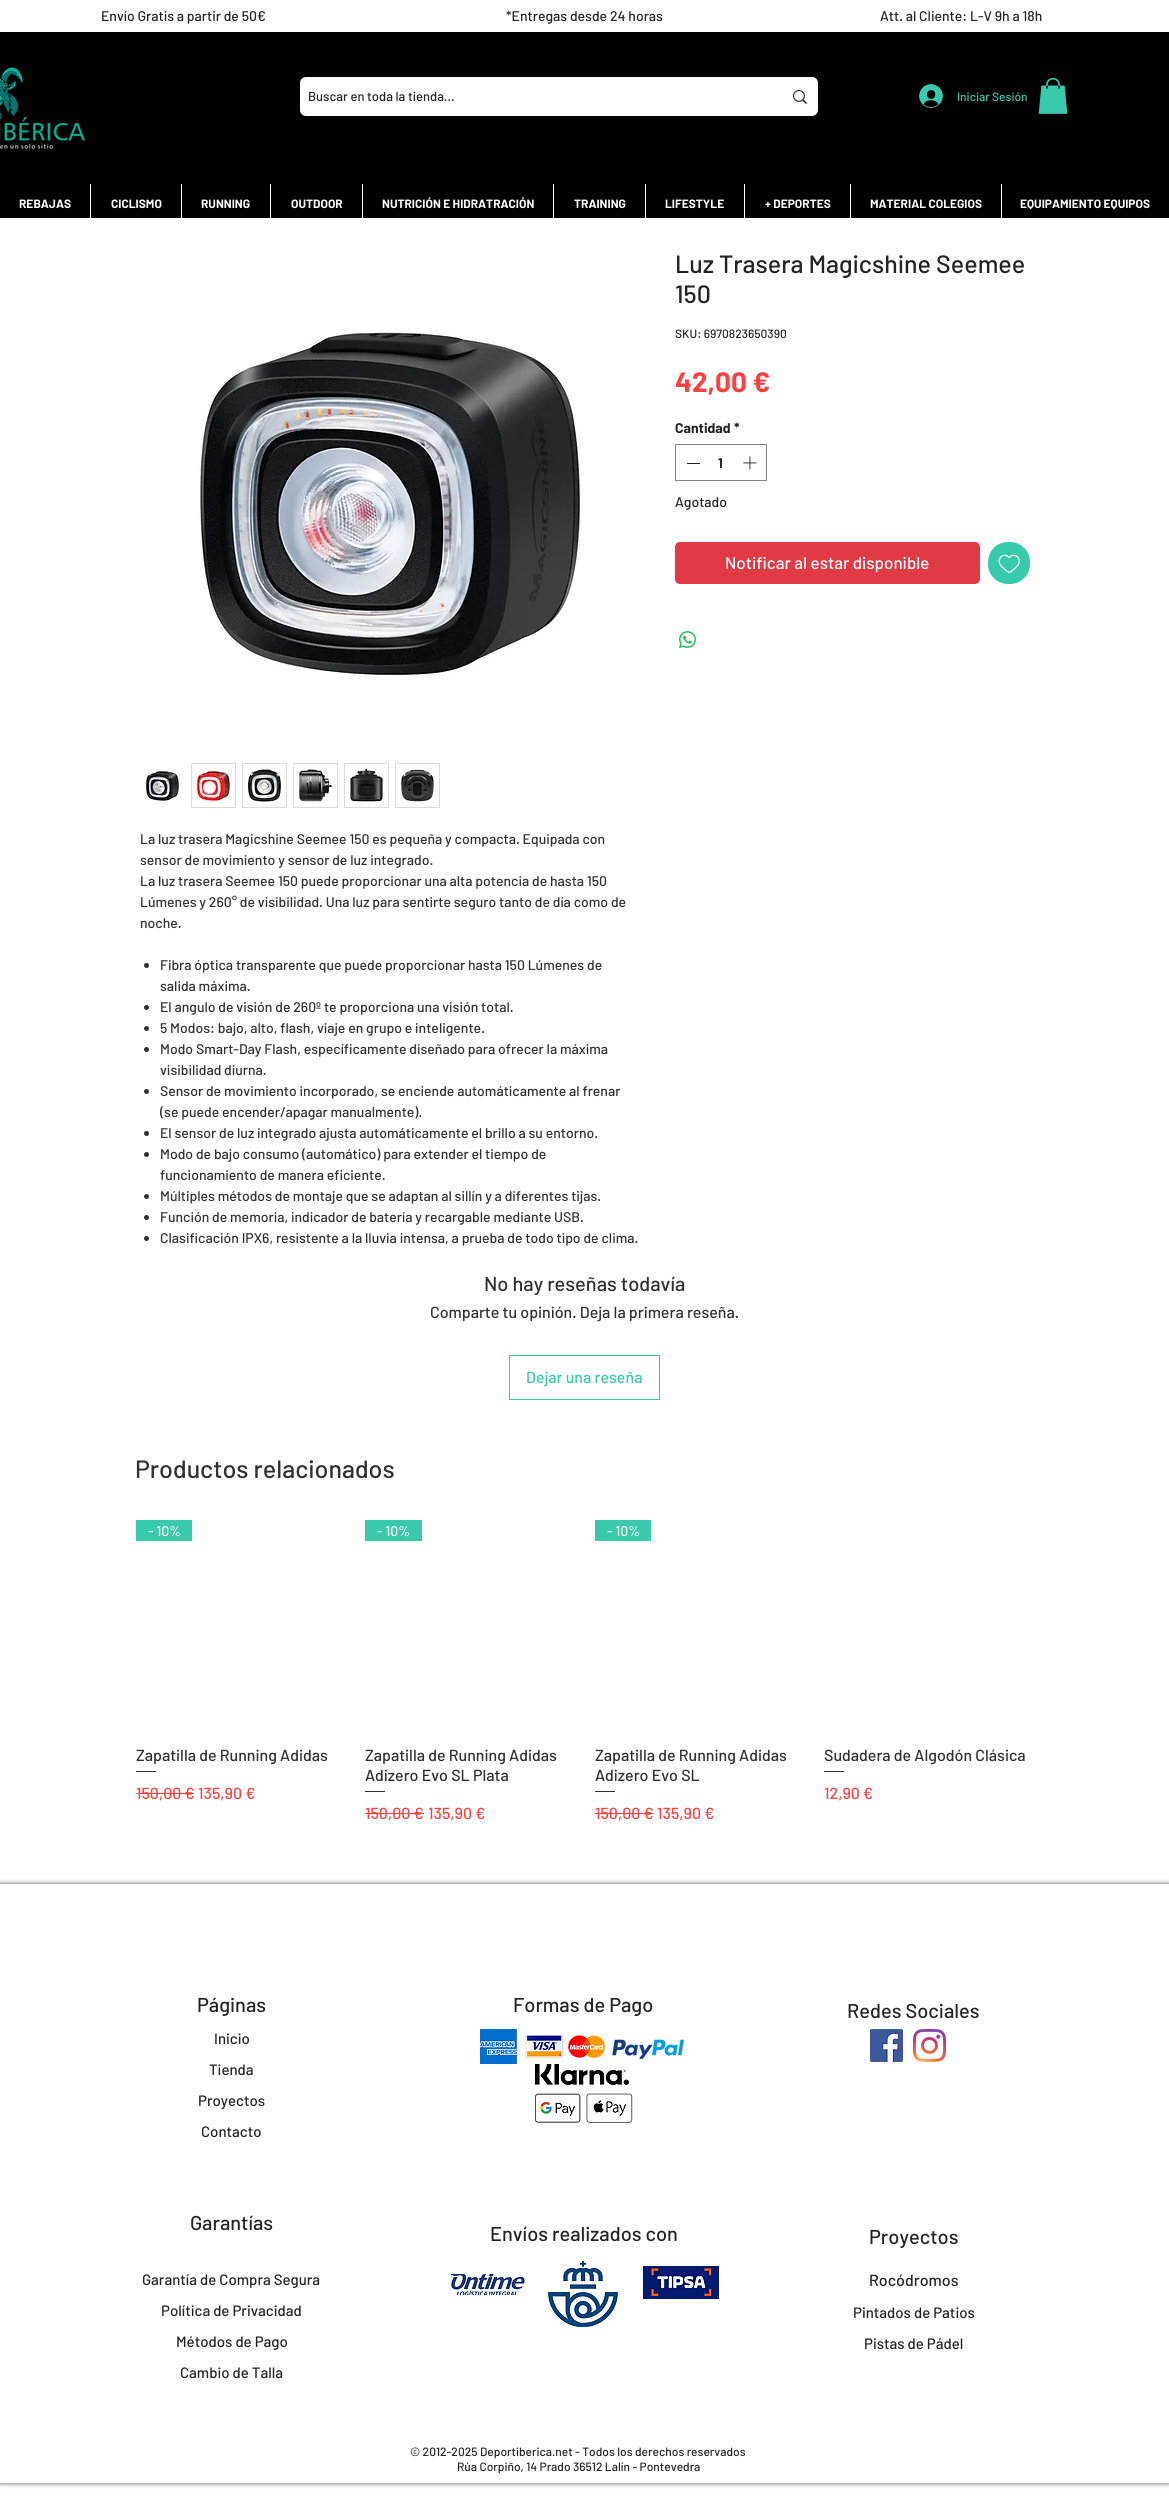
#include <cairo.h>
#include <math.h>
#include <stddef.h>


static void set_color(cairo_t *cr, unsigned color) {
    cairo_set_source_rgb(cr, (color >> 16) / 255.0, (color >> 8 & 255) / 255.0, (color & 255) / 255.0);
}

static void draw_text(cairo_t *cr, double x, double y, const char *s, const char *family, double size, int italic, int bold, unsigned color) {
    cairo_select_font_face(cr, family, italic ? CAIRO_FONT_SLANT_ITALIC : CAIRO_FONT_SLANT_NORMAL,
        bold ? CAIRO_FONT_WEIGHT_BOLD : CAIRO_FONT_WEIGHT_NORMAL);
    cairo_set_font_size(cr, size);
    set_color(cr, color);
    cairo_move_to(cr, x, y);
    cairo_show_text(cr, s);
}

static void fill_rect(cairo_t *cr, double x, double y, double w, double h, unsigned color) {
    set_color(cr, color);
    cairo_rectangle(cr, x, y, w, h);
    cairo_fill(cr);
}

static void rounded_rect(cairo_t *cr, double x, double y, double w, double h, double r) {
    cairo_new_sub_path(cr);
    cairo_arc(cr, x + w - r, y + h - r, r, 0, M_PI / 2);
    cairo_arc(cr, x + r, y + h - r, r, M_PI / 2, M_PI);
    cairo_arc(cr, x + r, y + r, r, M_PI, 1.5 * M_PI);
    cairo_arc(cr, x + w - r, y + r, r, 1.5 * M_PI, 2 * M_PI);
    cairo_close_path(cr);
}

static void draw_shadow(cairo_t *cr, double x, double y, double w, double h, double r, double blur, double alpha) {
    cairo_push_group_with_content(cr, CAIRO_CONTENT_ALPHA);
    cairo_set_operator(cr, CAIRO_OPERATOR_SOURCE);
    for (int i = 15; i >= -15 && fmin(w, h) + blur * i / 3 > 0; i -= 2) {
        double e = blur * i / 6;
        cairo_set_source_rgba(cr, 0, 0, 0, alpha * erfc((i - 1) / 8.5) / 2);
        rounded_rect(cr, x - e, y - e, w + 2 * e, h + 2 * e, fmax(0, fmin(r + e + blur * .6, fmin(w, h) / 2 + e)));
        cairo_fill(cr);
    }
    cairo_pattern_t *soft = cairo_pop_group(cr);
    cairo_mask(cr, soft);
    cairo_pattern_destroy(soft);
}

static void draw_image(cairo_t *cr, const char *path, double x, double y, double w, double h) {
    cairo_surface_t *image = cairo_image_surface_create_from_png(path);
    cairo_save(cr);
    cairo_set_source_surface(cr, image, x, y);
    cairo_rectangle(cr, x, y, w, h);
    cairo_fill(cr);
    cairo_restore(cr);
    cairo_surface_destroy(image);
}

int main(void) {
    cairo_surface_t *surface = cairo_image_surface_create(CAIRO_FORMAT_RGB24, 1169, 2498);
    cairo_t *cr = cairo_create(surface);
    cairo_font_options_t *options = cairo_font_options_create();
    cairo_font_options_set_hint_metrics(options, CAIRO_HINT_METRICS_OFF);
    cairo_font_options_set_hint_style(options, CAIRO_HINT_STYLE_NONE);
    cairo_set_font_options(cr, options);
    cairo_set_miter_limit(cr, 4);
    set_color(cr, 0xFFFFFF);
    cairo_paint(cr);
    draw_text(cr, 101, 21, "Envío Gratis a partir de 50€", "Barlow Medium", 14, 0, 0, 0x242323);
    draw_text(cr, 506, 21, "*Entregas desde 24 horas", "Barlow Medium", 14, 0, 0, 0x242323);
    draw_text(cr, 880, 21, "Att. al Cliente: L-V 9h a 18h", "Barlow Medium", 14, 0, 0, 0x242323);
    fill_rect(cr, 0, 32, 1169, 186, 0x000002);
    draw_image(cr, "assets/img1.png", 0, 67, 86, 82);
    set_color(cr, 0xFFFFFF);
    rounded_rect(cr, 300, 77, 518, 39, 6);
    cairo_fill(cr);
    draw_text(cr, 308, 101, "Buscar en toda la tienda...", "Barlow Medium", 13, 0, 0, 0x242323);
    draw_image(cr, "assets/img2.png", 793, 90, 14, 14);
    draw_image(cr, "assets/img3.png", 919, 84, 24, 24);
    draw_text(cr, 957, 101, "Iniciar Sesión", "Barlow Medium", 12, 0, 0, 0x39C9AB);
    draw_image(cr, "assets/img4.png", 1038, 78, 30, 36);
    draw_text(cr, 19, 208, "REBAJAS", "Barlow", 12, 0, 1, 0xFFFFFF);
    fill_rect(cr, 90, 184, 1, 39, 0xFFFFFF);
    draw_text(cr, 111, 208, "CICLISMO", "Barlow", 12, 0, 1, 0xFFFFFF);
    fill_rect(cr, 181, 184, 1, 39, 0xFFFFFF);
    draw_text(cr, 201, 208, "RUNNING", "Barlow", 12, 0, 1, 0xFFFFFF);
    fill_rect(cr, 270, 184, 1, 39, 0xFFFFFF);
    draw_text(cr, 291, 208, "OUTDOOR", "Barlow", 12, 0, 1, 0xFFFFFF);
    fill_rect(cr, 362, 184, 1, 39, 0xFFFFFF);
    draw_text(cr, 382, 208, "NUTRICIÓN E HIDRATRACIÓN", "Barlow", 12, 0, 1, 0xFFFFFF);
    fill_rect(cr, 553, 184, 1, 39, 0xFFFFFF);
    draw_text(cr, 574, 208, "TRAINING", "Barlow", 12, 0, 1, 0xFFFFFF);
    fill_rect(cr, 645, 184, 1, 39, 0xFFFFFF);
    draw_text(cr, 665, 208, "LIFESTYLE", "Barlow", 12, 0, 1, 0xFFFFFF);
    fill_rect(cr, 744, 184, 1, 39, 0xFFFFFF);
    draw_text(cr, 765, 208, "+ DEPORTES", "Barlow", 12, 0, 1, 0xFFFFFF);
    fill_rect(cr, 850, 184, 1, 39, 0xFFFFFF);
    draw_text(cr, 870, 208, "MATERIAL COLEGIOS", "Barlow", 12, 0, 1, 0xFFFFFF);
    fill_rect(cr, 1001, 184, 1, 39, 0xFFFFFF);
    draw_text(cr, 1020, 208, "EQUIPAMIENTO EQUIPOS", "Barlow", 12, 0, 1, 0xFFFFFF);
    draw_text(cr, 675, 273, "Luz Trasera Magicshine Seemee", "Barlow Medium", 25, 0, 0, 0x242323);
    draw_text(cr, 675, 303, "150", "Barlow Medium", 25, 0, 0, 0x242323);
    draw_text(cr, 675, 338, "SKU: 6970823650390", "Barlow Medium", 12, 0, 0, 0x242323);
    draw_text(cr, 675, 392, "42,00 €", "Barlow", 28, 0, 1, 0xFF4040);
    draw_text(cr, 675, 433, "Cantidad", "Barlow", 14, 0, 1, 0x242323);
    draw_text(cr, 734, 433, "*", "Barlow", 14, 0, 1, 0x242323);
    cairo_rectangle(cr, 675.5, 444.5, 91, 36);
    set_color(cr, 0x838383);
    cairo_set_line_width(cr, 1);
    cairo_stroke(cr);
    fill_rect(cr, 687, 463, 13, 1, 0x242323);
    draw_text(cr, 718, 468, "1", "Barlow", 14, 0, 1, 0x242323);
    draw_image(cr, "assets/img5.png", 743, 456, 14, 14);
    draw_text(cr, 675, 507, "Agotado", "Barlow Medium", 14, 0, 0, 0x242323);
    set_color(cr, 0xE13A44);
    rounded_rect(cr, 675, 542, 305, 42, 5);
    cairo_fill(cr);
    draw_text(cr, 725, 569, "Notificar al estar disponible", "Barlow Medium", 17, 0, 0, 0xFFFFFF);
    set_color(cr, 0x39C9AB);
    rounded_rect(cr, 988, 542, 42, 42, 20);
    cairo_fill(cr);
    draw_image(cr, "assets/img6.png", 998, 554, 22, 19);
    draw_image(cr, "assets/img7.png", 679, 631, 17, 17);
    draw_image(cr, "assets/img8.png", 197, 330, 384, 348);
    draw_image(cr, "assets/img9.png", 141, 764, 43, 43);
    fill_rect(cr, 191, 763, 45, 45, 0xDBDBDB);
    draw_image(cr, "assets/img10.png", 192, 764, 43, 43);
    fill_rect(cr, 242, 763, 45, 45, 0xDBDBDB);
    draw_image(cr, "assets/img11.png", 243, 764, 43, 43);
    fill_rect(cr, 293, 763, 45, 45, 0xDBDBDB);
    draw_image(cr, "assets/img12.png", 294, 764, 43, 43);
    fill_rect(cr, 344, 763, 45, 45, 0xDBDBDB);
    draw_image(cr, "assets/img13.png", 345, 764, 43, 43);
    fill_rect(cr, 395, 763, 45, 45, 0xDBDBDB);
    draw_image(cr, "assets/img14.png", 396, 764, 43, 43);
    draw_text(cr, 140, 844, "La luz trasera Magicshine Seemee 150 es pequeña y compacta. Equipada con", "Barlow Medium", 14, 0, 0, 0x303030);
    draw_text(cr, 140, 865, "sensor de movimiento y sensor de luz integrado.", "Barlow Medium", 14, 0, 0, 0x303030);
    draw_text(cr, 140, 886, "La luz trasera Seemee 150 puede proporcionar una alta potencia de hasta 150", "Barlow Medium", 14, 0, 0, 0x303030);
    draw_text(cr, 140, 907, "Lúmenes y 260° de visibilidad. Una luz para sentirte seguro tanto de día como de", "Barlow Medium", 14, 0, 0, 0x303030);
    draw_text(cr, 140, 928, "noche.", "Barlow Medium", 14, 0, 0, 0x303030);
    cairo_new_path(cr);
    cairo_arc(cr, 146.5, 965.5, 2.5, 0, 2 * M_PI);
    cairo_fill(cr);
    draw_text(cr, 160, 970, "Fibra óptica transparente que puede proporcionar hasta 150 Lúmenes de", "Barlow Medium", 14, 0, 0, 0x303030);
    draw_text(cr, 160, 991, "salida máxima.", "Barlow Medium", 14, 0, 0, 0x303030);
    cairo_new_path(cr);
    cairo_arc(cr, 146.5, 1007.5, 2.5, 0, 2 * M_PI);
    cairo_fill(cr);
    draw_text(cr, 160, 1012, "El angulo de visión de 260º te proporciona una visión total.", "Barlow Medium", 14, 0, 0, 0x303030);
    cairo_new_path(cr);
    cairo_arc(cr, 146.5, 1028.5, 2.5, 0, 2 * M_PI);
    cairo_fill(cr);
    draw_text(cr, 160, 1033, "5 Modos: bajo, alto, flash, viaje en grupo e inteligente.", "Barlow Medium", 14, 0, 0, 0x303030);
    cairo_new_path(cr);
    cairo_arc(cr, 146.5, 1049.5, 2.5, 0, 2 * M_PI);
    cairo_fill(cr);
    draw_text(cr, 160, 1054, "Modo Smart-Day Flash, específicamente diseñado para ofrecer la máxima", "Barlow Medium", 14, 0, 0, 0x303030);
    draw_text(cr, 160, 1075, "visibilidad diurna.", "Barlow Medium", 14, 0, 0, 0x303030);
    cairo_new_path(cr);
    cairo_arc(cr, 146.5, 1091.5, 2.5, 0, 2 * M_PI);
    cairo_fill(cr);
    draw_text(cr, 160, 1096, "Sensor de movimiento incorporado, se enciende automáticamente al frenar", "Barlow Medium", 14, 0, 0, 0x303030);
    draw_text(cr, 160, 1117, "(se puede encender/apagar manualmente).", "Barlow Medium", 14, 0, 0, 0x303030);
    cairo_new_path(cr);
    cairo_arc(cr, 146.5, 1133.5, 2.5, 0, 2 * M_PI);
    cairo_fill(cr);
    draw_text(cr, 160, 1138, "El sensor de luz integrado ajusta automáticamente el brillo a su entorno.", "Barlow Medium", 14, 0, 0, 0x303030);
    cairo_new_path(cr);
    cairo_arc(cr, 146.5, 1154.5, 2.5, 0, 2 * M_PI);
    cairo_fill(cr);
    draw_text(cr, 160, 1159, "Modo de bajo consumo (automático) para extender el tiempo de", "Barlow Medium", 14, 0, 0, 0x303030);
    draw_text(cr, 160, 1180, "funcionamiento de manera eficiente.", "Barlow Medium", 14, 0, 0, 0x303030);
    cairo_new_path(cr);
    cairo_arc(cr, 146.5, 1196.5, 2.5, 0, 2 * M_PI);
    cairo_fill(cr);
    draw_text(cr, 160, 1201, "Múltiples métodos de montaje que se adaptan al sillín y a diferentes tijas.", "Barlow Medium", 14, 0, 0, 0x303030);
    cairo_new_path(cr);
    cairo_arc(cr, 146.5, 1217.5, 2.5, 0, 2 * M_PI);
    cairo_fill(cr);
    draw_text(cr, 160, 1222, "Función de memoria, indicador de batería y recargable mediante USB.", "Barlow Medium", 14, 0, 0, 0x303030);
    cairo_new_path(cr);
    cairo_arc(cr, 146.5, 1238.5, 2.5, 0, 2 * M_PI);
    cairo_fill(cr);
    draw_text(cr, 160, 1243, "Clasificación IPX6, resistente a la lluvia intensa, a prueba de todo tipo de clima.", "Barlow Medium", 14, 0, 0, 0x303030);
    draw_text(cr, 484, 1291, "No hay reseñas todavía", "Barlow Medium", 20, 0, 0, 0x303030);
    draw_text(cr, 430, 1318, "Comparte tu opinión. Deja la primera reseña.", "Barlow Medium", 16, 0, 0, 0x303030);
    cairo_rectangle(cr, 509.5, 1355.5, 150, 44);
    set_color(cr, 0x39C9AB);
    cairo_stroke(cr);
    draw_text(cr, 526, 1383, "Dejar una reseña", "Barlow Medium", 16, 0, 0, 0x39C9AB);
    draw_text(cr, 135, 1478, "Productos relacionados", "Barlow Medium", 25, 0, 0, 0x303030);
    fill_rect(cr, 136, 1520, 56, 21, 0x39C9AB);
    draw_text(cr, 148, 1536, "- 10%", "Barlow Medium", 14, 0, 0, 0xFFFFFF);
    draw_text(cr, 136, 1761, "Zapatilla de Running Adidas", "Barlow Medium", 16, 0, 0, 0x303030);
    fill_rect(cr, 136, 1771, 20, 1, 0x303030);
    draw_text(cr, 136, 1799, "150,00 €", "Barlow Medium", 16, 0, 0, 0xFF4040);
    fill_rect(cr, 136, 1793, 58, 1, 0xFF4040);
    draw_text(cr, 198, 1799, "135,90 €", "Barlow Medium", 16, 0, 0, 0xFF4040);
    fill_rect(cr, 365, 1520, 57, 21, 0x39C9AB);
    draw_text(cr, 377, 1536, "- 10%", "Barlow Medium", 14, 0, 0, 0xFFFFFF);
    draw_text(cr, 365, 1761, "Zapatilla de Running Adidas", "Barlow Medium", 16, 0, 0, 0x303030);
    draw_text(cr, 365, 1781, "Adizero Evo SL Plata", "Barlow Medium", 16, 0, 0, 0x303030);
    fill_rect(cr, 365, 1791, 20, 1, 0x303030);
    draw_text(cr, 365, 1819, "150,00 €", "Barlow Medium", 16, 0, 0, 0xFF4040);
    fill_rect(cr, 365, 1813, 59, 1, 0xFF4040);
    draw_text(cr, 428, 1819, "135,90 €", "Barlow Medium", 16, 0, 0, 0xFF4040);
    fill_rect(cr, 595, 1520, 56, 21, 0x39C9AB);
    draw_text(cr, 607, 1536, "- 10%", "Barlow Medium", 14, 0, 0, 0xFFFFFF);
    draw_text(cr, 595, 1761, "Zapatilla de Running Adidas", "Barlow Medium", 16, 0, 0, 0x303030);
    draw_text(cr, 595, 1781, "Adizero Evo SL", "Barlow Medium", 16, 0, 0, 0x303030);
    fill_rect(cr, 595, 1791, 20, 1, 0x303030);
    draw_text(cr, 595, 1819, "150,00 €", "Barlow Medium", 16, 0, 0, 0xFF4040);
    fill_rect(cr, 595, 1813, 58, 1, 0xFF4040);
    draw_text(cr, 657, 1819, "135,90 €", "Barlow Medium", 16, 0, 0, 0xFF4040);
    draw_text(cr, 824, 1761, "Sudadera de Algodón Clásica", "Barlow Medium", 16, 0, 0, 0x303030);
    fill_rect(cr, 824, 1771, 20, 1, 0x303030);
    draw_text(cr, 824, 1799, "12,90 €", "Barlow Medium", 16, 0, 0, 0xFF4040);
    cairo_save(cr);
    cairo_set_fill_rule(cr, CAIRO_FILL_RULE_EVEN_ODD);
    cairo_new_path(cr);
    cairo_move_to(cr, 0, 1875);
    cairo_line_to(cr, 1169, 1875);
    cairo_line_to(cr, 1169, 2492);
    cairo_line_to(cr, 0, 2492);
    cairo_close_path(cr);
    cairo_move_to(cr, 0, 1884);
    cairo_line_to(cr, 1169, 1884);
    cairo_line_to(cr, 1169, 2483);
    cairo_line_to(cr, 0, 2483);
    cairo_close_path(cr);
    cairo_clip(cr);
    set_color(cr, 0x000000);
    draw_shadow(cr, 0, 1884, 1169, 599, 0, 2.5, 0.7);
    cairo_restore(cr);
    draw_text(cr, 197, 2012, "Páginas", "Barlow Medium", 20, 0, 0, 0x242323);
    draw_text(cr, 513, 2012, "Formas de Pago", "Barlow Medium", 20, 0, 0, 0x242323);
    draw_text(cr, 847, 2018, "Redes Sociales", "Barlow Medium", 20, 0, 0, 0x242323);
    draw_text(cr, 214, 2044, "Inicio", "Barlow Medium", 15, 0, 0, 0x242323);
    draw_text(cr, 209, 2075, "Tienda", "Barlow Medium", 15, 0, 0, 0x242323);
    draw_text(cr, 198, 2106, "Proyectos", "Barlow Medium", 15, 0, 0, 0x242323);
    draw_text(cr, 201, 2137, "Contacto", "Barlow Medium", 15, 0, 0, 0x242323);
    draw_image(cr, "assets/img15.png", 480, 2029, 204, 35);
    draw_image(cr, "assets/img16.png", 870, 2029, 33, 33);
    draw_image(cr, "assets/img17.png", 913, 2029, 33, 33);
    draw_image(cr, "assets/img18.png", 535, 2064, 94, 21);
    draw_image(cr, "assets/img19.png", 534, 2093, 99, 30);
    draw_text(cr, 190, 2230, "Garantías", "Barlow Medium", 20, 0, 0, 0x242323);
    draw_text(cr, 490, 2241, "Envíos realizados con", "Barlow Medium", 20, 0, 0, 0x242323);
    draw_text(cr, 869, 2244, "Proyectos", "Barlow Medium", 20, 0, 0, 0x242323);
    draw_text(cr, 142, 2285, "Garantía de Compra Segura", "Barlow Medium", 15, 0, 0, 0x242323);
    draw_text(cr, 161, 2316, "Política de Privacidad", "Barlow Medium", 15, 0, 0, 0x242323);
    draw_text(cr, 176, 2347, "Métodos de Pago", "Barlow Medium", 15, 0, 0, 0x242323);
    draw_text(cr, 180, 2378, "Cambio de Talla", "Barlow Medium", 15, 0, 0, 0x242323);
    draw_image(cr, "assets/img20.png", 450, 2274, 75, 21);
    draw_image(cr, "assets/img21.png", 548, 2261, 70, 66);
    draw_image(cr, "assets/img22.png", 643, 2266, 76, 33);
    draw_text(cr, 869, 2286, "Rocódromos", "Barlow Medium", 16, 0, 0, 0x242323);
    draw_text(cr, 853, 2318, "Pintados de Patios", "Barlow Medium", 15, 0, 0, 0x242323);
    draw_text(cr, 864, 2349, "Pistas de Pádel", "Barlow Medium", 15, 0, 0, 0x242323);
    draw_text(cr, 410, 2456, "© 2012-2025 Deportiberica.net - Todos los derechos reservados", "Barlow Medium", 12, 0, 0, 0x242323);
    draw_text(cr, 457, 2471, "Rúa Corpiño, 14 Prado 36512 Lalín - Pontevedra", "Barlow Medium", 12, 0, 0, 0x242323);
    cairo_surface_write_to_png(surface, "output.png");
    cairo_font_options_destroy(options);
    cairo_destroy(cr);
    cairo_surface_destroy(surface);
    return 0;
}
